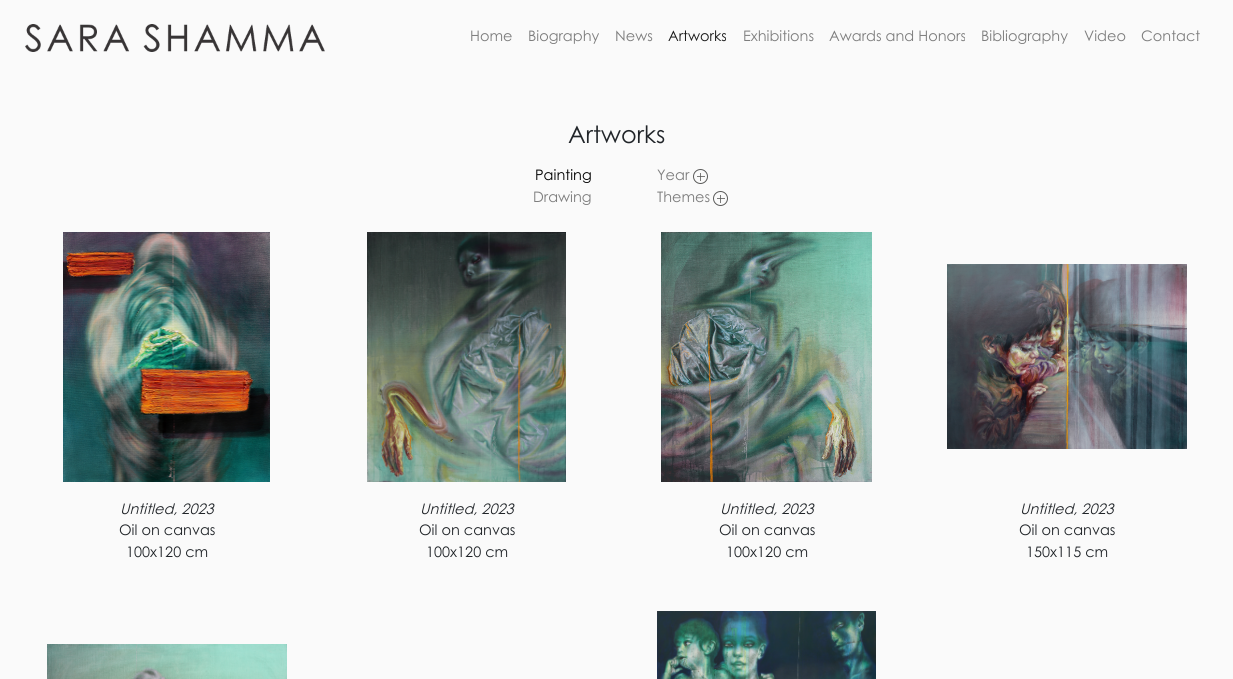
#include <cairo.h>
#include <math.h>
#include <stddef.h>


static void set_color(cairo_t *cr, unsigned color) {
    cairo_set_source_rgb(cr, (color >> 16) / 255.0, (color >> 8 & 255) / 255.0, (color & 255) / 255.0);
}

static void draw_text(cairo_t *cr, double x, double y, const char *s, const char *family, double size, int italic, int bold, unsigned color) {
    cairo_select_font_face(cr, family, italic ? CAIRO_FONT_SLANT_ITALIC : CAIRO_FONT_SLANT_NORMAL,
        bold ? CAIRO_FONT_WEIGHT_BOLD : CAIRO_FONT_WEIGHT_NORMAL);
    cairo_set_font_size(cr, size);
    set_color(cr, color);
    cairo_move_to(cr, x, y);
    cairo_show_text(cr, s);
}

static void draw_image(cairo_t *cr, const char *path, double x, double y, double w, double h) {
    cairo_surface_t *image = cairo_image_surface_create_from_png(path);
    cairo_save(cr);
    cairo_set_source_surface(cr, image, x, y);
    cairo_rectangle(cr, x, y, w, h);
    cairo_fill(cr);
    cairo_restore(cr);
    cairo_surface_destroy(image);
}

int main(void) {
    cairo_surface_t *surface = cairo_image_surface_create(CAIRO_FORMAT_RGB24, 1233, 679);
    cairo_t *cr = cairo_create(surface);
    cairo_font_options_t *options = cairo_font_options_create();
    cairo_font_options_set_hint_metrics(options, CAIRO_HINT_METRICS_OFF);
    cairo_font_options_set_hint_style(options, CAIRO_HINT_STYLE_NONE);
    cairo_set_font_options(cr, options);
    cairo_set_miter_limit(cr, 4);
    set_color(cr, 0xFAFAFA);
    cairo_paint(cr);
    draw_image(cr, "assets/img1.png", 25, 24, 300, 28);
    draw_text(cr, 470, 41, "Home", "Century Gothic", 14.5, 0, 0, 0x7D7D7D);
    draw_text(cr, 528, 41, "Biography", "Century Gothic", 14.5, 0, 0, 0x7D7D7D);
    draw_text(cr, 615, 41, "News", "Century Gothic", 14.5, 0, 0, 0x7D7D7D);
    draw_text(cr, 668, 41, "Artworks", "Century Gothic", 14.5, 0, 0, 0x191919);
    draw_text(cr, 743, 41, "Exhibitions", "Century Gothic", 14.5, 0, 0, 0x7D7D7D);
    draw_text(cr, 829, 41, "Awards and Honors", "Century Gothic", 14.5, 0, 0, 0x7D7D7D);
    draw_text(cr, 981, 41, "Bibliography", "Century Gothic", 14.5, 0, 0, 0x7D7D7D);
    draw_text(cr, 1084, 41, "Video", "Century Gothic", 14.5, 0, 0, 0x7D7D7D);
    draw_text(cr, 1141, 41, "Contact", "Century Gothic", 14.5, 0, 0, 0x7D7D7D);
    draw_text(cr, 568, 143, "Artworks", "Century Gothic", 24, 0, 0, 0x212529);
    draw_text(cr, 535, 180, "Painting", "Century Gothic", 14.5, 0, 0, 0x000000);
    draw_text(cr, 533, 202, "Drawing", "Century Gothic", 14.5, 0, 0, 0x7D7D7D);
    draw_text(cr, 657, 180, "Year", "Century Gothic", 14.5, 0, 0, 0x7D7D7D);
    draw_image(cr, "assets/img2.png", 693, 169, 15, 15);
    draw_text(cr, 657, 202, "Themes", "Century Gothic", 14.5, 0, 0, 0x7D7D7D);
    draw_image(cr, "assets/img2.png", 713, 191, 15, 15);
    draw_image(cr, "assets/img3.png", 63, 232, 207, 250);
    draw_text(cr, 120, 514, "Untitled, 2023", "Century Gothic", 14.5, 1, 0, 0x212529);
    draw_text(cr, 119, 535, "Oil on canvas", "Century Gothic", 14.5, 0, 0, 0x212529);
    draw_text(cr, 126, 557, "100x120 cm", "Century Gothic", 14.5, 0, 0, 0x212529);
    draw_image(cr, "assets/img4.png", 367, 232, 199, 250);
    draw_text(cr, 420, 514, "Untitled, 2023", "Century Gothic", 14.5, 1, 0, 0x212529);
    draw_text(cr, 419, 535, "Oil on canvas", "Century Gothic", 14.5, 0, 0, 0x212529);
    draw_text(cr, 426, 557, "100x120 cm", "Century Gothic", 14.5, 0, 0, 0x212529);
    draw_image(cr, "assets/img5.png", 661, 232, 211, 250);
    draw_text(cr, 720, 514, "Untitled, 2023", "Century Gothic", 14.5, 1, 0, 0x212529);
    draw_text(cr, 719, 535, "Oil on canvas", "Century Gothic", 14.5, 0, 0, 0x212529);
    draw_text(cr, 726, 557, "100x120 cm", "Century Gothic", 14.5, 0, 0, 0x212529);
    draw_image(cr, "assets/img6.png", 947, 264, 240, 185);
    draw_text(cr, 1020, 514, "Untitled, 2023", "Century Gothic", 14.5, 1, 0, 0x212529);
    draw_text(cr, 1019, 535, "Oil on canvas", "Century Gothic", 14.5, 0, 0, 0x212529);
    draw_text(cr, 1026, 557, "150x115 cm", "Century Gothic", 14.5, 0, 0, 0x212529);
    draw_image(cr, "assets/img7.png", 47, 644, 240, 35);
    draw_image(cr, "assets/img8.png", 657, 611, 219, 68);
    cairo_surface_write_to_png(surface, "output.png");
    cairo_font_options_destroy(options);
    cairo_destroy(cr);
    cairo_surface_destroy(surface);
    return 0;
}
